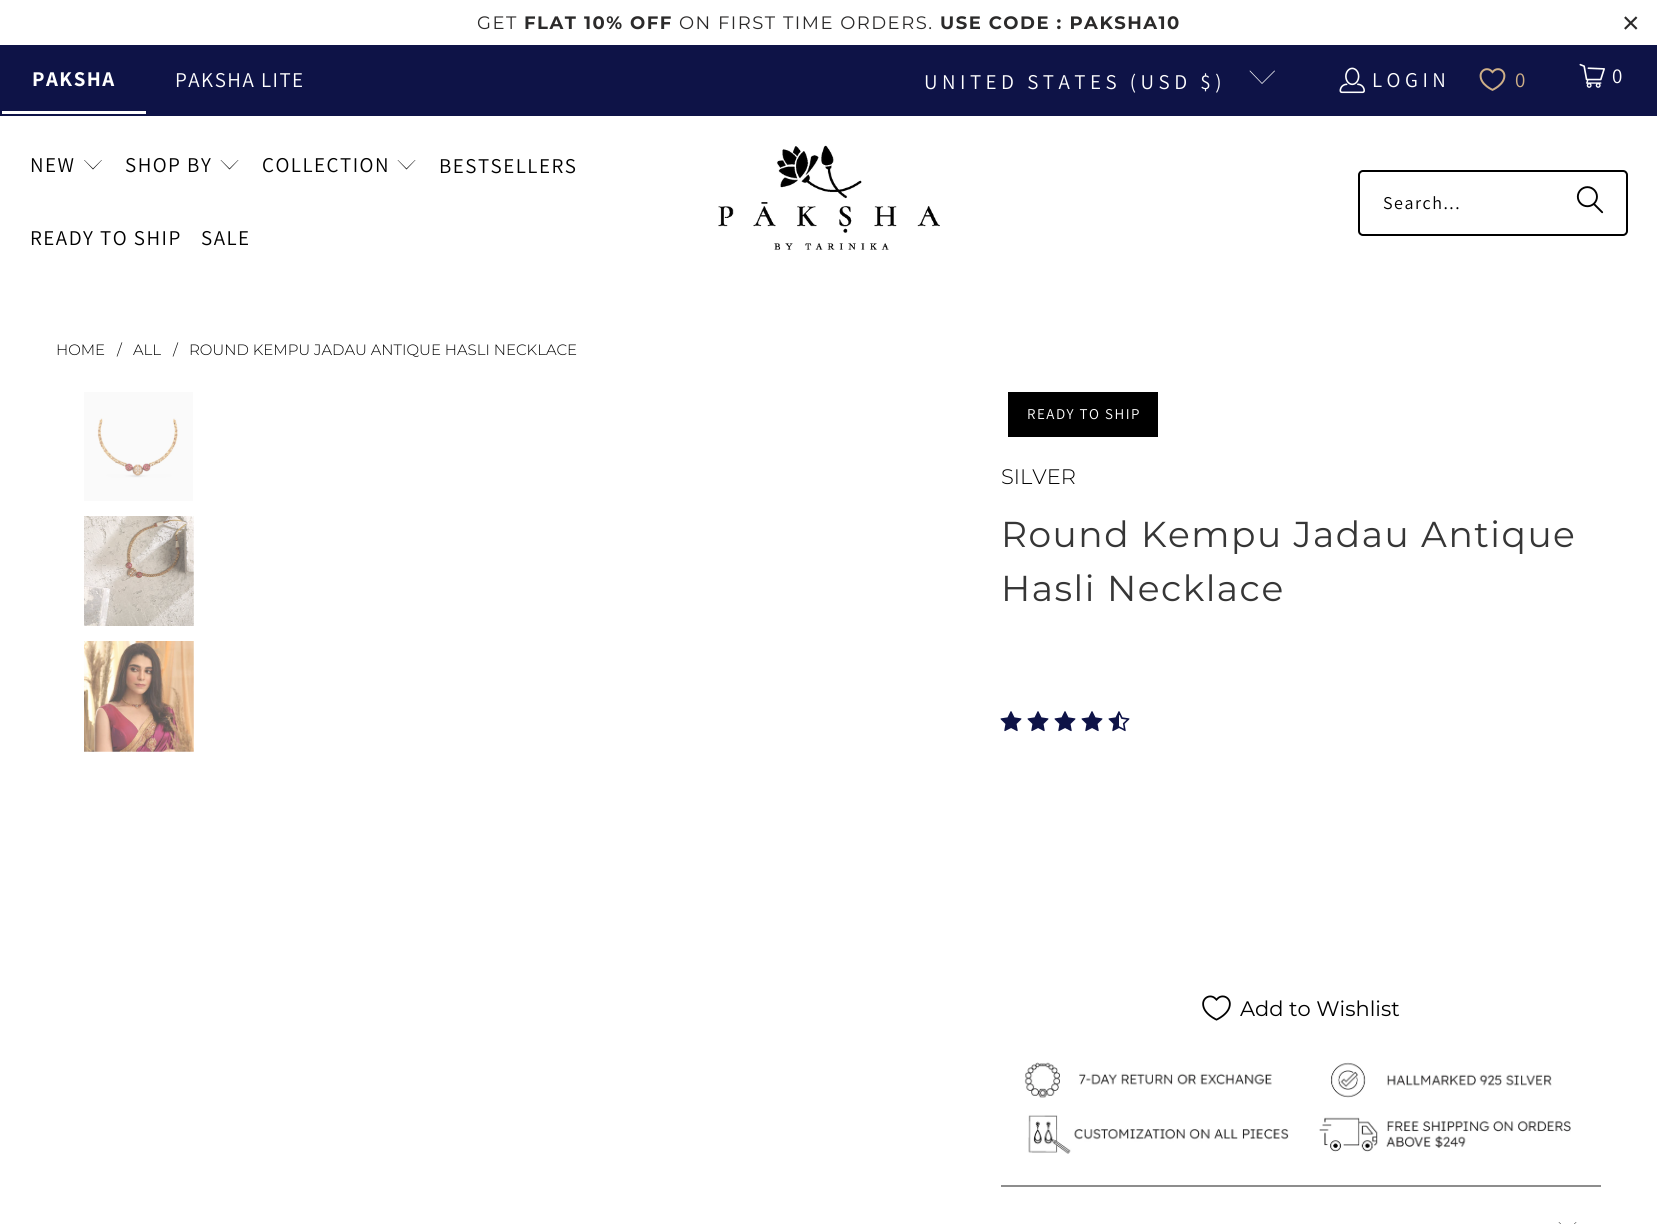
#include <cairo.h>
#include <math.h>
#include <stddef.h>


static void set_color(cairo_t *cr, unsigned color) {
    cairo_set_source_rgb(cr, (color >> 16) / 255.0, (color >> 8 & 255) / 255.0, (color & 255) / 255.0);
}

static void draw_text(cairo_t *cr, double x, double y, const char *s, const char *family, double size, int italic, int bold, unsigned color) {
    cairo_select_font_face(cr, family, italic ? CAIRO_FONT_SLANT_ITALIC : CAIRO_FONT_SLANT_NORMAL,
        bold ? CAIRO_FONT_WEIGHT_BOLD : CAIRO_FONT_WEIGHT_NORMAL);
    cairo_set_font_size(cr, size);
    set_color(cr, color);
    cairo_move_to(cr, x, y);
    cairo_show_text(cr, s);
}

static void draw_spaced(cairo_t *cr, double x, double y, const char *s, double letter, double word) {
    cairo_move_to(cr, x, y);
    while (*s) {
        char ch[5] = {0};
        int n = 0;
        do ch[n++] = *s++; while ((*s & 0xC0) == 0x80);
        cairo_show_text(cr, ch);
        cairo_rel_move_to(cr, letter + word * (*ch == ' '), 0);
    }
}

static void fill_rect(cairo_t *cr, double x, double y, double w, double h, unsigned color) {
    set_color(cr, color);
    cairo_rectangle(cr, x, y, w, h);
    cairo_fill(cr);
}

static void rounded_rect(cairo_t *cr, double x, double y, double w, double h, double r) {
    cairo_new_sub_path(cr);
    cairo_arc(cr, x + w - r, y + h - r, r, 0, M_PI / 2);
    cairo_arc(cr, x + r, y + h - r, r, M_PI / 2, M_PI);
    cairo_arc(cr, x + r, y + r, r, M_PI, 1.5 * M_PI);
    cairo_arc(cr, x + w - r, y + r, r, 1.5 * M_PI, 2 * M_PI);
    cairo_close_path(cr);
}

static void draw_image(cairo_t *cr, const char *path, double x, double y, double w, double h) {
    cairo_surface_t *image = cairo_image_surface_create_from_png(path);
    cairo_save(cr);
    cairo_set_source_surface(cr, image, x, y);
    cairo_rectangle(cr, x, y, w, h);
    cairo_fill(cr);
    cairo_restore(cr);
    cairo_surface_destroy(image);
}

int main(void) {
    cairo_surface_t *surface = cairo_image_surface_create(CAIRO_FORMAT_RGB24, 1657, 1224);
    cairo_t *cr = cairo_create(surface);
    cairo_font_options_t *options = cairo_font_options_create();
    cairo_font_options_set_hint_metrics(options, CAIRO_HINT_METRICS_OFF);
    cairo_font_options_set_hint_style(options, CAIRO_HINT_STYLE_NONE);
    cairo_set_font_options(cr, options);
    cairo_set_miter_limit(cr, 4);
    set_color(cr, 0xFFFFFF);
    cairo_paint(cr);
    cairo_select_font_face(cr, "Montserrat", CAIRO_FONT_SLANT_NORMAL, CAIRO_FONT_WEIGHT_NORMAL);
    cairo_set_font_size(cr, 18);
    set_color(cr, 0x2B2A2A);
    draw_spaced(cr, 477, 29, "GET", 1.5, 0);
    cairo_select_font_face(cr, "Montserrat", CAIRO_FONT_SLANT_NORMAL, CAIRO_FONT_WEIGHT_BOLD);
    draw_spaced(cr, 524, 29, "FLAT 10% OFF", 1.5, 0);
    cairo_select_font_face(cr, "Montserrat", CAIRO_FONT_SLANT_NORMAL, CAIRO_FONT_WEIGHT_NORMAL);
    draw_spaced(cr, 679, 29, "ON FIRST TIME ORDERS.", 1.5, 0);
    cairo_select_font_face(cr, "Montserrat", CAIRO_FONT_SLANT_NORMAL, CAIRO_FONT_WEIGHT_BOLD);
    draw_spaced(cr, 940, 29, "USE CODE : PAKSHA10", 1.5, 0);
    cairo_select_font_face(cr, "Liberation Sans", CAIRO_FONT_SLANT_NORMAL, CAIRO_FONT_WEIGHT_NORMAL);
    cairo_set_font_size(cr, 30);
    draw_spaced(cr, 1622, 33, "×", 1.5, 0);
    fill_rect(cr, 0, 45, 1657, 71, 0x0E1347);
    fill_rect(cr, 2, 111, 144, 3, 0xFFFFFF);
    cairo_select_font_face(cr, "Assistant", CAIRO_FONT_SLANT_NORMAL, CAIRO_FONT_WEIGHT_BOLD);
    cairo_set_font_size(cr, 21);
    draw_spaced(cr, 32, 86, "PAKSHA", 1.5, 0);
    cairo_select_font_face(cr, "Assistant", CAIRO_FONT_SLANT_NORMAL, CAIRO_FONT_WEIGHT_NORMAL);
    draw_spaced(cr, 175, 87, "PAKSHA LITE", 1.5, 0);
    draw_spaced(cr, 924, 89, "UNITED STATES (USD $)", 4.5, 0);
    cairo_new_path(cr);
    cairo_move_to(cr, 1262, 84);
    cairo_line_to(cr, 1249.5, 71);
    cairo_line_to(cr, 1250, 70.5);
    cairo_line_to(cr, 1262, 83);
    cairo_line_to(cr, 1274.5, 70.5);
    cairo_line_to(cr, 1275, 71);
    cairo_close_path(cr);
    cairo_fill(cr);
    draw_image(cr, "assets/img1.png", 1339, 67, 26, 27);
    draw_spaced(cr, 1372, 87, "LOGIN", 4.5, 0);
    draw_image(cr, "assets/img2.png", 1479, 68, 27, 23);
    set_color(cr, 0xCEAF87);
    draw_spaced(cr, 1515, 87, "0", 4.5, 0);
    draw_image(cr, "assets/img3.png", 1579, 63, 26, 25);
    set_color(cr, 0xFFFFFF);
    draw_spaced(cr, 1612, 83, "0", 4.5, 0);
    set_color(cr, 0x000000);
    draw_spaced(cr, 30, 172, "NEW", 1.5, 0);
    cairo_new_path(cr);
    cairo_move_to(cr, 93, 169.5);
    cairo_line_to(cr, 84, 160);
    cairo_line_to(cr, 84.5, 160);
    cairo_line_to(cr, 93, 168.5);
    cairo_line_to(cr, 101.5, 160);
    cairo_line_to(cr, 102, 160);
    cairo_close_path(cr);
    cairo_fill(cr);
    draw_spaced(cr, 125, 172, "SHOP BY", 1.5, 0);
    cairo_new_path(cr);
    cairo_move_to(cr, 229.5, 169.5);
    cairo_line_to(cr, 220.5, 160);
    cairo_line_to(cr, 221, 160);
    cairo_line_to(cr, 229.5, 168.5);
    cairo_line_to(cr, 238, 160);
    cairo_line_to(cr, 238.5, 160);
    cairo_close_path(cr);
    cairo_fill(cr);
    draw_spaced(cr, 262, 172, "COLLECTION", 1.5, 0);
    cairo_new_path(cr);
    cairo_move_to(cr, 406.5, 169.5);
    cairo_line_to(cr, 397.5, 160);
    cairo_line_to(cr, 398, 160);
    cairo_line_to(cr, 406.5, 168.5);
    cairo_line_to(cr, 415, 160);
    cairo_line_to(cr, 415.5, 160);
    cairo_close_path(cr);
    cairo_fill(cr);
    draw_spaced(cr, 439, 173, "BESTSELLERS", 1.5, 0);
    draw_spaced(cr, 30, 245, "READY TO SHIP", 1.5, 0);
    draw_spaced(cr, 201, 245, "SALE", 1.5, 0);
    draw_image(cr, "assets/img4.png", 718, 145, 222, 105);
    rounded_rect(cr, 1359, 171, 268, 64, 4);
    cairo_stroke(cr);
    cairo_set_font_size(cr, 18);
    draw_spaced(cr, 1383, 209, "Search...", 1.5, 0);
    draw_image(cr, "assets/img5.png", 1576, 186, 28, 28);
    draw_text(cr, 56, 355, "HOME", "Montserrat Light", 15, 0, 0, 0x000000);
    draw_text(cr, 117, 355, "/", "Montserrat Light", 15, 0, 0, 0x000000);
    draw_text(cr, 133, 355, "ALL", "Montserrat Light", 15, 0, 0, 0x000000);
    draw_text(cr, 173, 355, "/", "Montserrat Light", 15, 0, 0, 0x000000);
    draw_text(cr, 189, 355, "ROUND KEMPU JADAU ANTIQUE HASLI NECKLACE", "Montserrat Light", 15, 0, 0, 0x000000);
    draw_image(cr, "assets/img6.png", 84, 392, 109, 109);
    draw_image(cr, "assets/img7.png", 84, 516, 110, 110);
    draw_image(cr, "assets/img8.png", 84, 641, 110, 111);
    fill_rect(cr, 1008, 392, 150, 45, 0x000000);
    cairo_select_font_face(cr, "Assistant", CAIRO_FONT_SLANT_NORMAL, CAIRO_FONT_WEIGHT_NORMAL);
    set_color(cr, 0xFFFFFF);
    draw_spaced(cr, 1027, 419, "READY TO SHIP", 1.5, 0);
    draw_text(cr, 1001, 484, "SILVER", "Montserrat Light", 21, 0, 0, 0x000000);
    cairo_select_font_face(cr, "Montserrat", CAIRO_FONT_SLANT_NORMAL, CAIRO_FONT_WEIGHT_NORMAL);
    cairo_set_font_size(cr, 36);
    set_color(cr, 0x363636);
    draw_spaced(cr, 1001, 547, "Round Kempu Jadau Antique", 1.5, 0);
    draw_spaced(cr, 1001, 601, "Hasli Necklace", 1.5, 0);
    draw_image(cr, "assets/img9.png", 1000, 711, 22, 21);
    draw_image(cr, "assets/img9.png", 1027, 711, 22, 21);
    draw_image(cr, "assets/img9.png", 1054, 711, 22, 21);
    draw_image(cr, "assets/img9.png", 1081, 711, 22, 21);
    draw_image(cr, "assets/img10.png", 1108, 711, 22, 21);
    draw_image(cr, "assets/img11.png", 1202, 995, 29, 26);
    draw_text(cr, 1240, 1016, "Add to Wishlist", "Montserrat", 21, 0, 0, 0x000000);
    draw_image(cr, "assets/img12.png", 1024, 1062, 547, 92);
    fill_rect(cr, 1001, 1185, 600, 2, 0x8D8D8D);
    set_color(cr, 0x000000);
    cairo_new_path(cr);
    cairo_move_to(cr, 1567.5, 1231.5);
    cairo_line_to(cr, 1558.5, 1222);
    cairo_line_to(cr, 1559, 1222);
    cairo_line_to(cr, 1567.5, 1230.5);
    cairo_line_to(cr, 1576, 1222);
    cairo_line_to(cr, 1576.5, 1222);
    cairo_close_path(cr);
    cairo_fill(cr);
    cairo_surface_write_to_png(surface, "output.png");
    cairo_font_options_destroy(options);
    cairo_destroy(cr);
    cairo_surface_destroy(surface);
    return 0;
}
